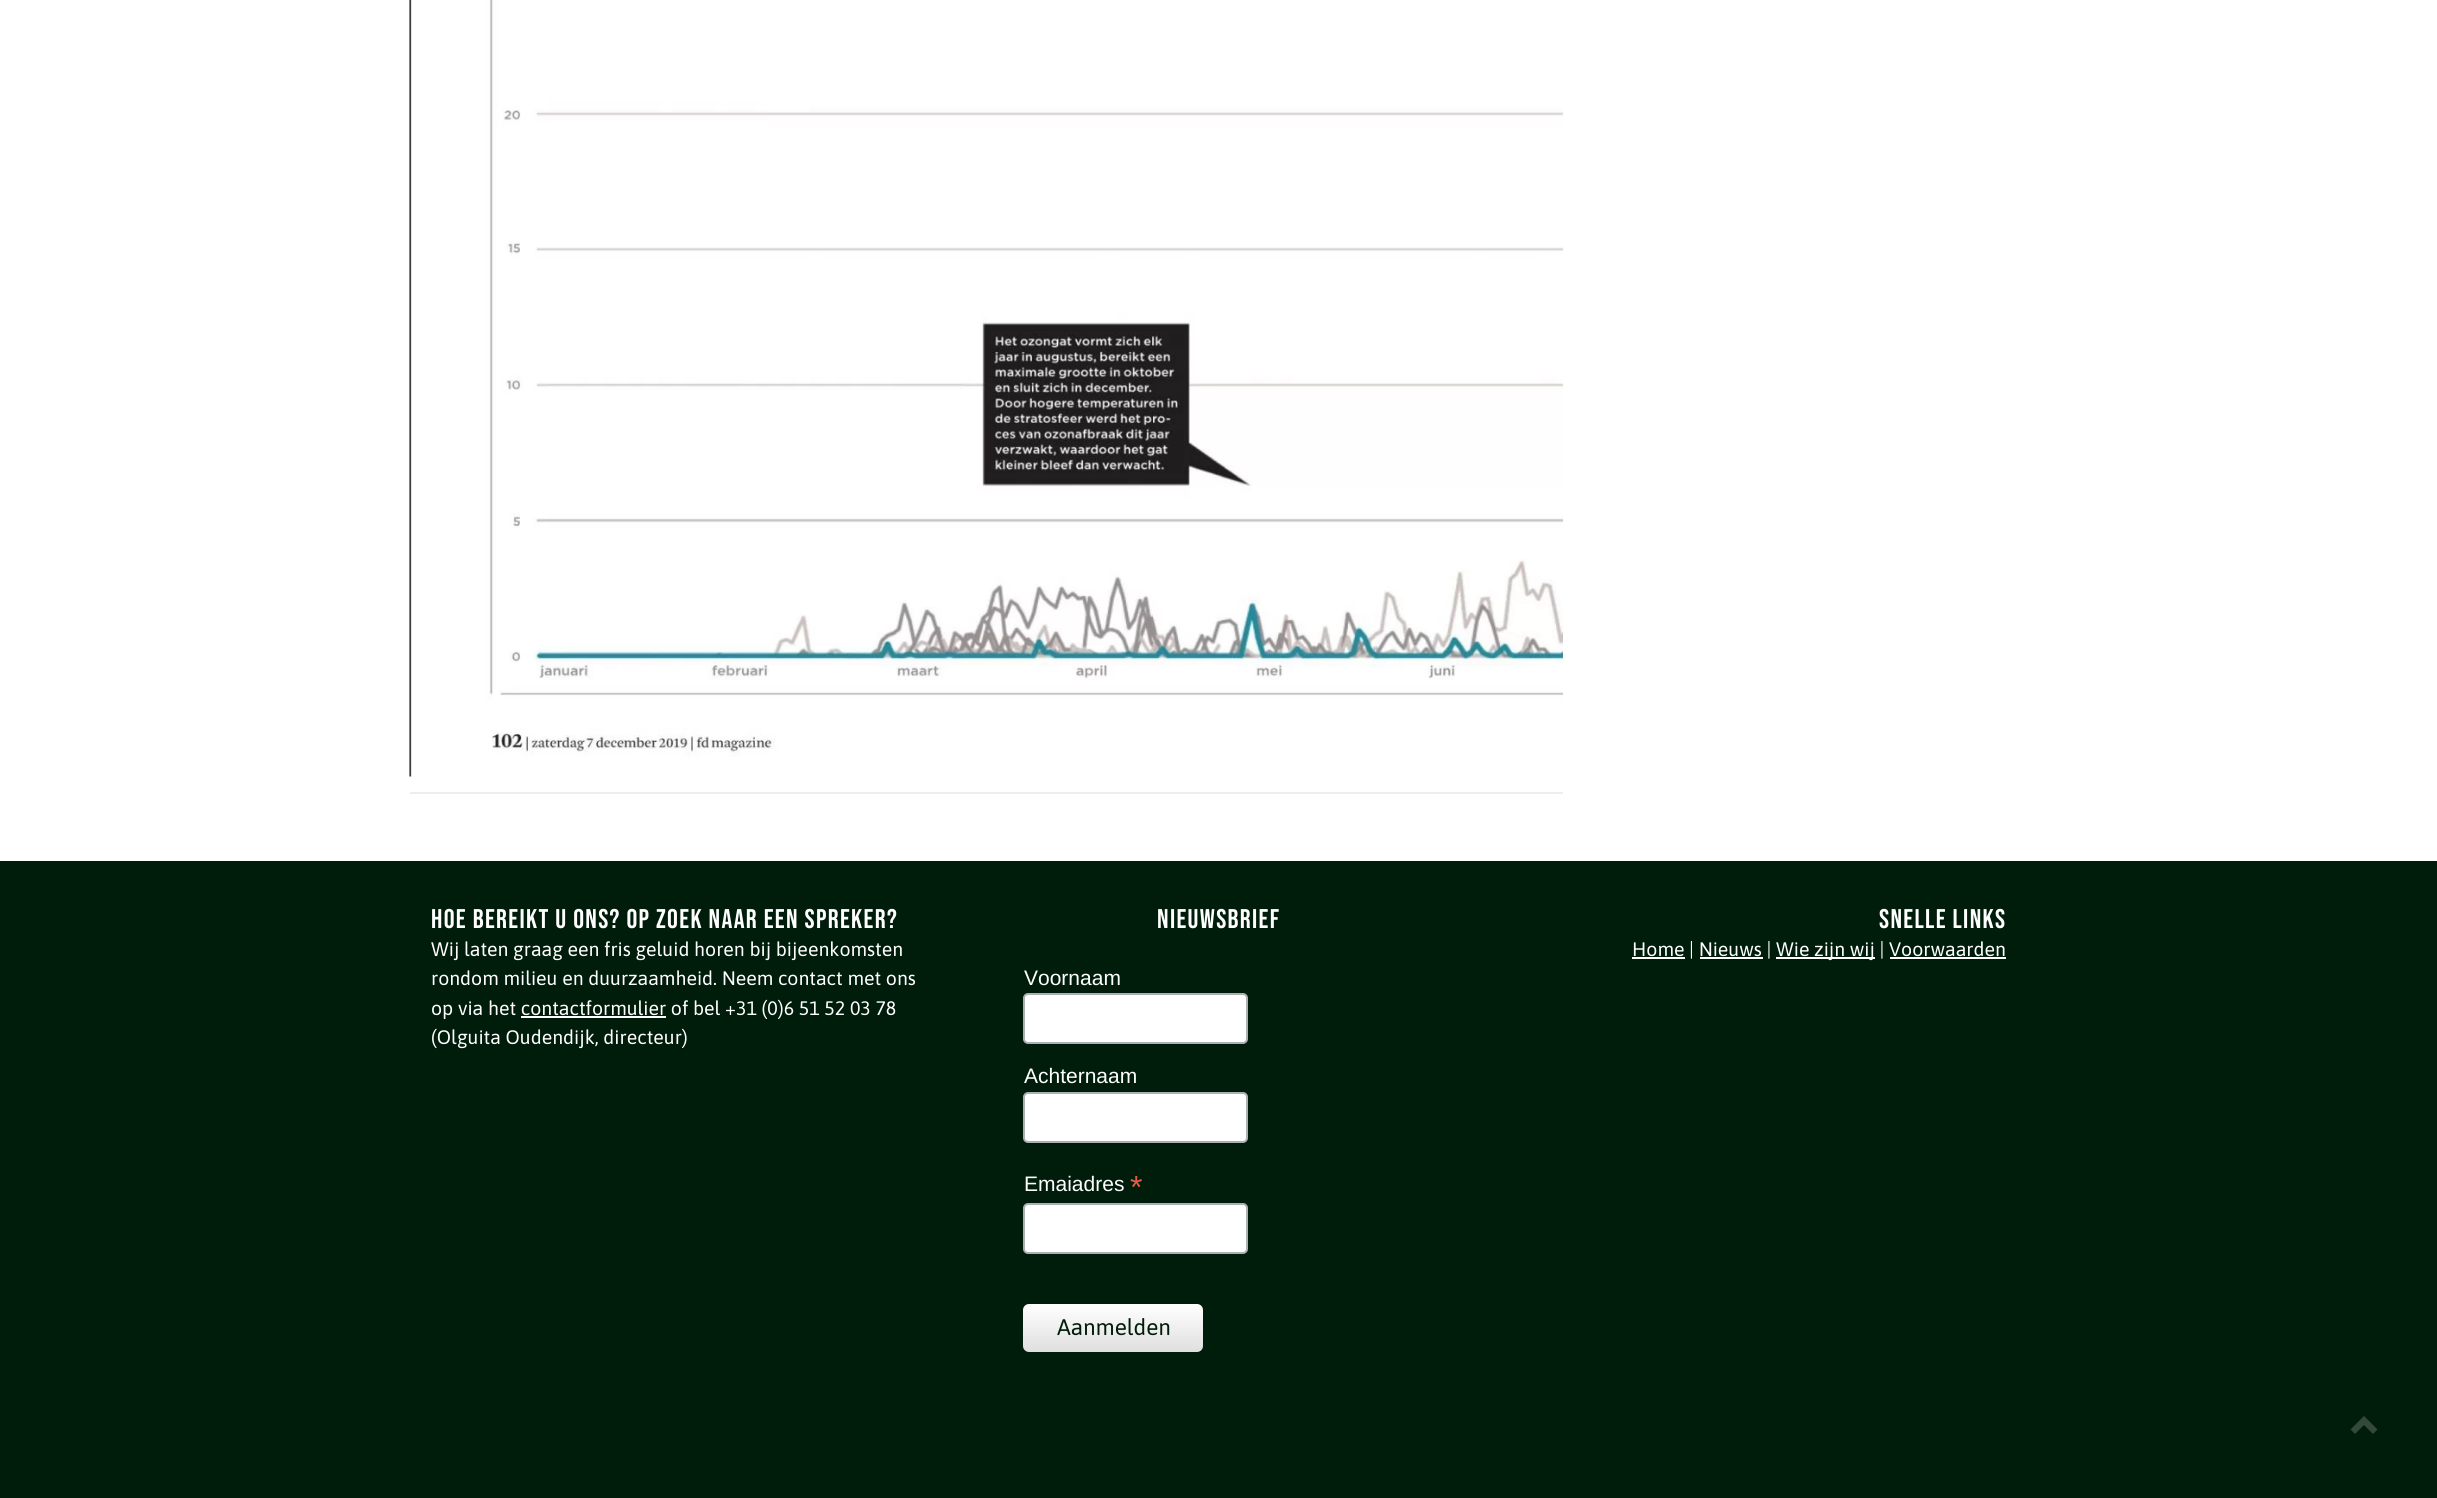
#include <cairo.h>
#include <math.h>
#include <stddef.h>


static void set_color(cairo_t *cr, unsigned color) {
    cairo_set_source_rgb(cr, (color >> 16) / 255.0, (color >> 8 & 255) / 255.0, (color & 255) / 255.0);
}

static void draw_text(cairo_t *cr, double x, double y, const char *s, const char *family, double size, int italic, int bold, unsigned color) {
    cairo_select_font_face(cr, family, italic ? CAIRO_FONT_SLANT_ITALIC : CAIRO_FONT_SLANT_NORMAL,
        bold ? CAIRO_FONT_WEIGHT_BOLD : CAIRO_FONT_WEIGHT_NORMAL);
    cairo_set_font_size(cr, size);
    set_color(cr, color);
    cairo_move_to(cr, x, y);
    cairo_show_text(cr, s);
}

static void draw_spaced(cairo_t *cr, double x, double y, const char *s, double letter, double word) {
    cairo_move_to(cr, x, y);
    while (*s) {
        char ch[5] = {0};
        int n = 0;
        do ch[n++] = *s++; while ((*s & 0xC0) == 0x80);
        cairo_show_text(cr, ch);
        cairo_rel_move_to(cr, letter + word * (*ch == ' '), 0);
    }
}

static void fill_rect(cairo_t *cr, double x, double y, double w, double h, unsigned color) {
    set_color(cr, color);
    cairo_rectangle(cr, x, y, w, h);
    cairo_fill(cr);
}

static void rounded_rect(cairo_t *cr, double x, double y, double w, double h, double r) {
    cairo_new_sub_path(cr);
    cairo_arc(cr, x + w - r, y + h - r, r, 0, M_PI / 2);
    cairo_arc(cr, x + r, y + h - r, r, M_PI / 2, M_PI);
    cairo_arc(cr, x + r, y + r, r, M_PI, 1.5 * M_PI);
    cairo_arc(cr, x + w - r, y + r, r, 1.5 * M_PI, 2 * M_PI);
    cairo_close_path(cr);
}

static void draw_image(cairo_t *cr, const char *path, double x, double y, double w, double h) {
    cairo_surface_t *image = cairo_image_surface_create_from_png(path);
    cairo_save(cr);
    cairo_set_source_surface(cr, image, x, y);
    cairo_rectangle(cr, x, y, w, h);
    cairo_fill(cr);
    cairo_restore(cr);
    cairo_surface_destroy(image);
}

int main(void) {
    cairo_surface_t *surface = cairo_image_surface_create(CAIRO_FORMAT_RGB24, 2437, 1498);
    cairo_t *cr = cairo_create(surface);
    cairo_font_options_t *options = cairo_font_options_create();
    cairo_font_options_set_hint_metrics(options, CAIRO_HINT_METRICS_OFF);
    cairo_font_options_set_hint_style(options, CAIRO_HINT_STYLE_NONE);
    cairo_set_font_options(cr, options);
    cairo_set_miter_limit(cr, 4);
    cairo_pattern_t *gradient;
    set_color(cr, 0x001C0A);
    cairo_paint(cr);
    fill_rect(cr, 0, 0, 2437, 861, 0xFFFFFF);
    fill_rect(cr, 410, 792, 1153, 2, 0xEEEEEE);
    draw_image(cr, "assets/img1.png", 409, 0, 1154, 777);
    cairo_select_font_face(cr, "Bebas Neue", CAIRO_FONT_SLANT_NORMAL, CAIRO_FONT_WEIGHT_NORMAL);
    cairo_set_font_size(cr, 27);
    set_color(cr, 0xFFFFFF);
    draw_spaced(cr, 431, 928, "Hoe bereikt u ons? Op zoek naar een spreker?", 1.35, 0);
    draw_text(cr, 431, 956, "Wij laten graag een fris geluid horen bij bijeenkomsten", "Asap", 19.5, 0, 0, 0xFFFFFF);
    draw_text(cr, 431, 985, "rondom milieu en duurzaamheid. Neem contact met ons", "Asap", 19.5, 0, 0, 0xFFFFFF);
    draw_text(cr, 431, 1015, "op via het contactformulier of bel +31 (0)6 51 52 03 78", "Asap", 19.5, 0, 0, 0xFFFFFF);
    fill_rect(cr, 521, 1016, 145, 2, 0xFFFFFF);
    draw_text(cr, 431, 1044, "(Olguita Oudendijk, directeur)", "Asap", 19.5, 0, 0, 0xFFFFFF);
    cairo_select_font_face(cr, "Bebas Neue", CAIRO_FONT_SLANT_NORMAL, CAIRO_FONT_WEIGHT_NORMAL);
    cairo_set_font_size(cr, 27);
    draw_spaced(cr, 1157, 928, "Nieuwsbrief", 1.35, 0);
    draw_text(cr, 1024, 985, "Voornaam", "Liberation Sans", 21, 0, 0, 0xFFFFFF);
    rounded_rect(cr, 1024, 994, 223, 49, 4);
    cairo_fill_preserve(cr);
    set_color(cr, 0xABB0B2);
    cairo_stroke(cr);
    draw_text(cr, 1024, 1083, "Achternaam", "Liberation Sans", 21, 0, 0, 0xFFFFFF);
    rounded_rect(cr, 1024, 1093, 223, 49, 4);
    cairo_fill_preserve(cr);
    set_color(cr, 0xABB0B2);
    cairo_stroke(cr);
    draw_text(cr, 1024, 1191, "Emaiadres", "Liberation Sans", 21, 0, 0, 0xFFFFFF);
    draw_text(cr, 1130, 1198, "*", "Liberation Sans", 32, 0, 0, 0xE85C41);
    set_color(cr, 0xFFFFFF);
    rounded_rect(cr, 1024, 1204, 223, 49, 4);
    cairo_fill_preserve(cr);
    set_color(cr, 0xABB0B2);
    cairo_stroke(cr);
    gradient = cairo_pattern_create_linear(1023, 1352, 1023, 1304);
    cairo_pattern_add_color_stop_rgba(gradient, 0, 0.875, 0.875, 0.875, 1);
    cairo_pattern_add_color_stop_rgba(gradient, 1, 1, 1, 1, 1);
    cairo_set_source(cr, gradient);
    cairo_pattern_destroy(gradient);
    rounded_rect(cr, 1023, 1304, 180, 48, 6);
    cairo_fill(cr);
    draw_text(cr, 1057, 1335, "Aanmelden", "Asap", 22.5, 0, 0, 0x001C0A);
    cairo_select_font_face(cr, "Bebas Neue", CAIRO_FONT_SLANT_NORMAL, CAIRO_FONT_WEIGHT_NORMAL);
    cairo_set_font_size(cr, 27);
    set_color(cr, 0xFFFFFF);
    draw_spaced(cr, 1879, 928, "Snelle links", 1.35, 0);
    fill_rect(cr, 1632, 957, 53, 2, 0xFFFFFF);
    draw_text(cr, 1632, 956, "Home | Nieuws |", "Asap", 19.5, 0, 0, 0xFFFFFF);
    fill_rect(cr, 1776, 957, 99, 2, 0xFFFFFF);
    draw_text(cr, 1776, 956, "Wie zijn wij | Voorwaarden", "Asap", 19.5, 0, 0, 0xFFFFFF);
    fill_rect(cr, 1700, 957, 63, 2, 0xFFFFFF);
    fill_rect(cr, 1890, 957, 116, 2, 0xFFFFFF);
    set_color(cr, 0x33493B);
    cairo_new_path(cr);
    cairo_move_to(cr, 2377.5, 1429.5);
    cairo_line_to(cr, 2364, 1416);
    cairo_line_to(cr, 2350.5, 1429.5);
    cairo_line_to(cr, 2355, 1434);
    cairo_line_to(cr, 2364, 1425);
    cairo_line_to(cr, 2373, 1434);
    cairo_close_path(cr);
    cairo_fill(cr);
    cairo_surface_write_to_png(surface, "output.png");
    cairo_font_options_destroy(options);
    cairo_destroy(cr);
    cairo_surface_destroy(surface);
    return 0;
}
